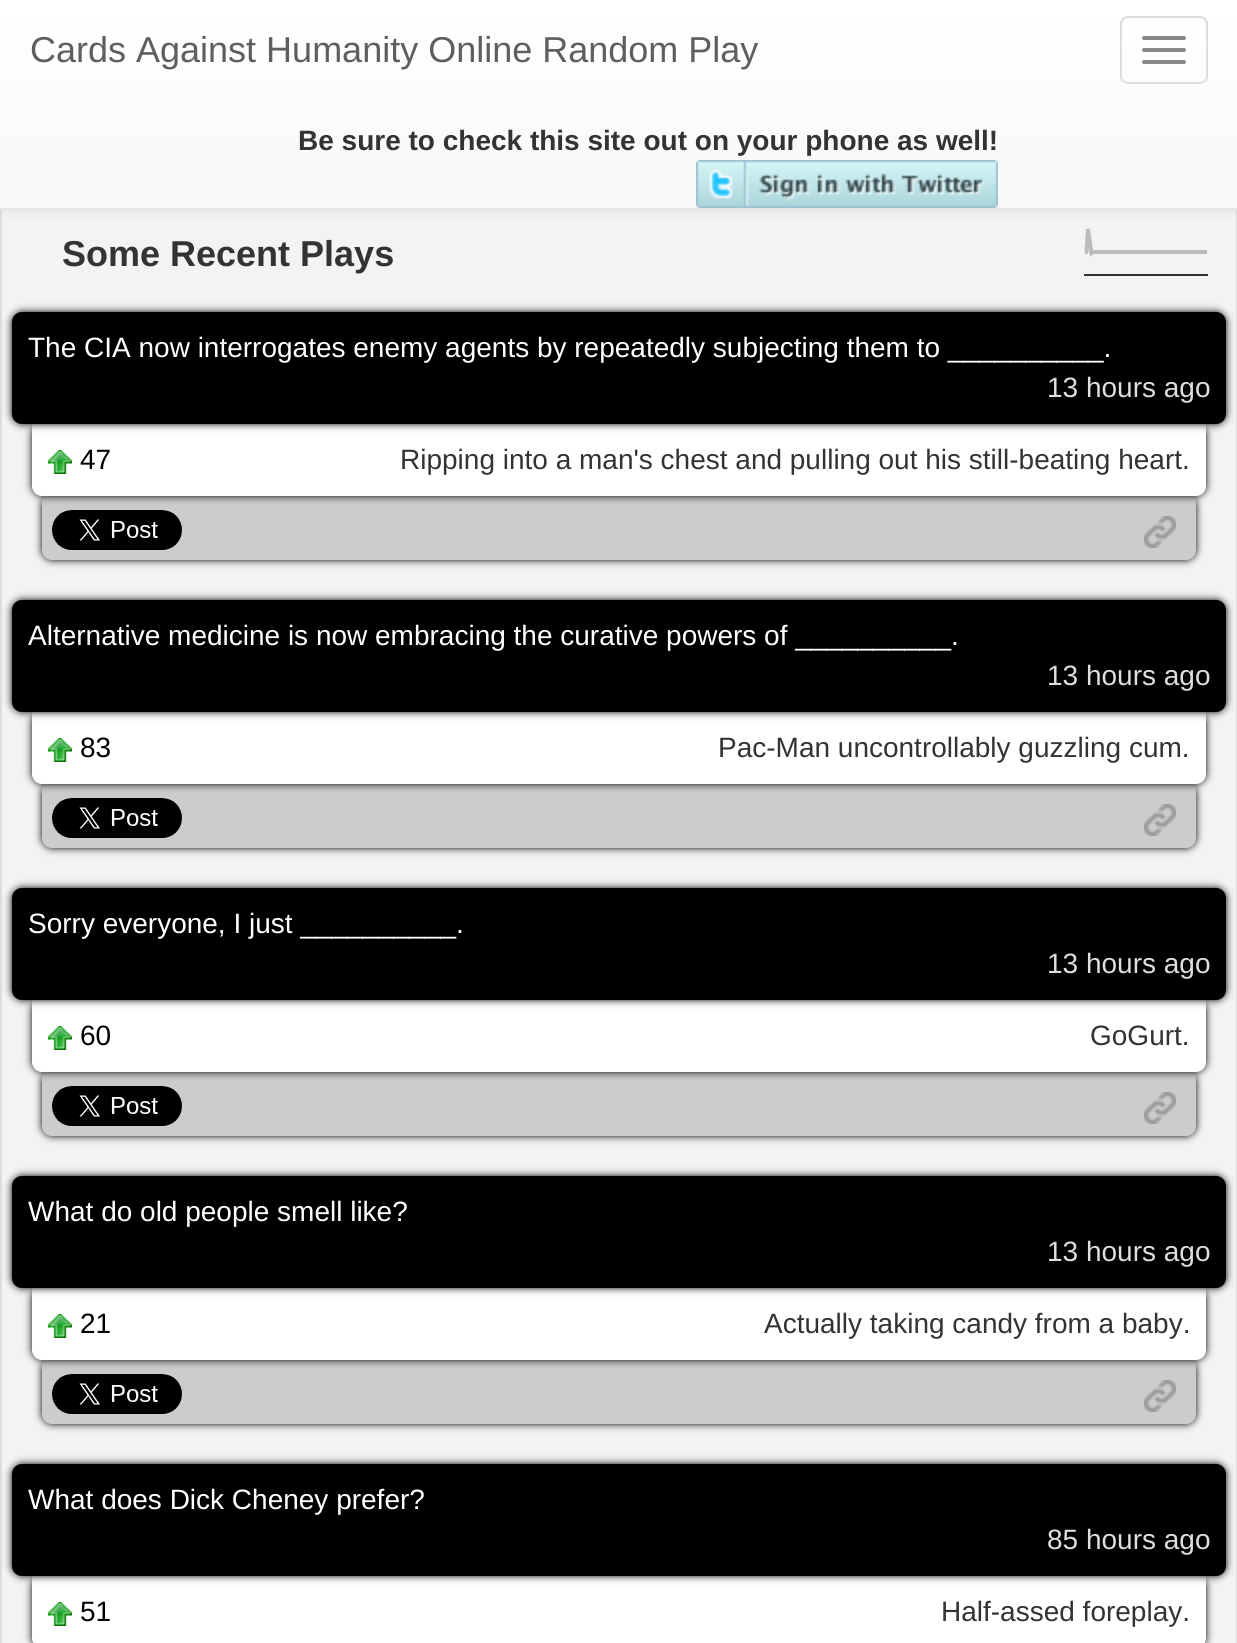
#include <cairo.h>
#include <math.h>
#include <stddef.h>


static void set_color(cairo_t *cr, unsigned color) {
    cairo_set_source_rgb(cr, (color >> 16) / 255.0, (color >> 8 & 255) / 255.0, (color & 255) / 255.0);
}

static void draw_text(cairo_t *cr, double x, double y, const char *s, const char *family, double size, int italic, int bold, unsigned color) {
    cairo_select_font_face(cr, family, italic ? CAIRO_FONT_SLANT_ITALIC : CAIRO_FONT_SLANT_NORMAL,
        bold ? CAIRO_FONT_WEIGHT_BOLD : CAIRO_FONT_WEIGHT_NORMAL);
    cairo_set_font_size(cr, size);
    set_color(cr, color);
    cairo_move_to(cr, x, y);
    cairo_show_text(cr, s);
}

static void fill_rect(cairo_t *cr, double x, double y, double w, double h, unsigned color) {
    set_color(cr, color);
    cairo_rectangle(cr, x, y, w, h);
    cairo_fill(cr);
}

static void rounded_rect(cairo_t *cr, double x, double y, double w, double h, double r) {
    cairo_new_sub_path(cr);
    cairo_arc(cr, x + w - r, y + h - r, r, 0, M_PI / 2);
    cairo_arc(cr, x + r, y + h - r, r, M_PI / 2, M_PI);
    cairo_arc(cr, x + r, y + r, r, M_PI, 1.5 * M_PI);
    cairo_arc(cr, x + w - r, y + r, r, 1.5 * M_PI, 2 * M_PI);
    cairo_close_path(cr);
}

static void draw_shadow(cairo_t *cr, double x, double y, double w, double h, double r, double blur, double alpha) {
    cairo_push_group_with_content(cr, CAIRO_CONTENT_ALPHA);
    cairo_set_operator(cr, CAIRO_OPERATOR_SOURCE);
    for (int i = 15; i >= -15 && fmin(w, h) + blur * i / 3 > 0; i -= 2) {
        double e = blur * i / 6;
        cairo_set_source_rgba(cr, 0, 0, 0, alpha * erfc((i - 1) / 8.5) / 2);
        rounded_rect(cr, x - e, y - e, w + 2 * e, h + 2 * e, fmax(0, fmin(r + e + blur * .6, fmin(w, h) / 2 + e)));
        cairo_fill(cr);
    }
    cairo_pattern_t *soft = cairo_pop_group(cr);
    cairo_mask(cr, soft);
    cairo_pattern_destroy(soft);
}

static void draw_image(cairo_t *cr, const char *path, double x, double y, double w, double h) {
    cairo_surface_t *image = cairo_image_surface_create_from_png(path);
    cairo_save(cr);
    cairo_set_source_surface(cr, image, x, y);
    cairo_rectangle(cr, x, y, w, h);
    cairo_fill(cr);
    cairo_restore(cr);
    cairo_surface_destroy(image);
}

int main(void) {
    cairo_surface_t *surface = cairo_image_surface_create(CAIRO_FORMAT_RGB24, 1237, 1643);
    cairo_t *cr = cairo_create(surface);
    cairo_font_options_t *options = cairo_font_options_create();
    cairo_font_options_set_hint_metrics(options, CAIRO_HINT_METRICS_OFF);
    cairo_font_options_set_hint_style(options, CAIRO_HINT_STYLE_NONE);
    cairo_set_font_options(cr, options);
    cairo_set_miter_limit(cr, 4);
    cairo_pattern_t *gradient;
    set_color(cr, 0xF3F3F3);
    cairo_paint(cr);
    fill_rect(cr, 1236, 210, 1, 1433, 0xDDDDDD);
    fill_rect(cr, 0, 210, 2, 1433, 0xDDDDDD);
    set_color(cr, 0x000000);
    draw_shadow(cr, 0, 2, 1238, 210, 0, 5, 0.07);
    gradient = cairo_pattern_create_linear(619, 0, 619, 208);
    cairo_pattern_add_color_stop_rgba(gradient, 0, 1, 1, 1, 1);
    cairo_pattern_add_color_stop_rgba(gradient, 1, 0.973, 0.973, 0.973, 1);
    cairo_set_source(cr, gradient);
    cairo_pattern_destroy(gradient);
    cairo_rectangle(cr, 0, 0, 1237, 208);
    cairo_fill(cr);
    fill_rect(cr, 0, 208, 1237, 2, 0xE7E7E7);
    draw_text(cr, 30, 62, "Cards Against Humanity Online Random Play", "Liberation Sans", 36, 0, 0, 0x5E5E5E);
    rounded_rect(cr, 1121, 17, 86, 66, 7);
    set_color(cr, 0xDDDDDD);
    cairo_stroke(cr);
    set_color(cr, 0x888888);
    rounded_rect(cr, 1142, 36, 44, 4, 2);
    cairo_fill(cr);
    rounded_rect(cr, 1142, 48, 44, 4, 2);
    cairo_fill(cr);
    rounded_rect(cr, 1142, 60, 44, 4, 2);
    cairo_fill(cr);
    draw_text(cr, 298, 150, "Be sure to check this site out on your phone as well!", "Liberation Sans", 28, 0, 1, 0x333333);
    draw_image(cr, "assets/img1.png", 696, 160, 302, 48);
    draw_text(cr, 62, 266, "Some Recent Plays", "Liberation Sans", 36, 0, 1, 0x333333);
    cairo_new_path(cr);
    cairo_move_to(cr, 1085, 252);
    cairo_curve_to(cr, 1086.5, 252, 1086.5, 252.5, 1086.5, 251);
    cairo_line_to(cr, 1088, 229);
    cairo_line_to(cr, 1091.5, 253);
    cairo_line_to(cr, 1093, 252);
    cairo_line_to(cr, 1207, 252);
    set_color(cr, 0xBBBBBB);
    cairo_set_line_width(cr, 4);
    cairo_stroke(cr);
    fill_rect(cr, 1084, 274, 124, 2, 0x333333);
    set_color(cr, 0x000000);
    draw_shadow(cr, 42, 496, 1154, 64, 10, 4, 1);
    set_color(cr, 0xCCCCCC);
    cairo_new_path(cr);
    cairo_move_to(cr, 42, 496);
    cairo_line_to(cr, 1196, 496);
    cairo_line_to(cr, 1196, 550);
    cairo_curve_to(cr, 1196, 555.5, 1191.5, 560, 1186, 560);
    cairo_line_to(cr, 52, 560);
    cairo_curve_to(cr, 46.5, 560, 42, 555.5, 42, 550);
    cairo_close_path(cr);
    cairo_fill(cr);
    set_color(cr, 0x000000);
    draw_shadow(cr, 32, 424, 1174, 72, 10, 4, 1);
    set_color(cr, 0xFFFFFF);
    cairo_new_path(cr);
    cairo_move_to(cr, 32, 424);
    cairo_line_to(cr, 1206, 424);
    cairo_line_to(cr, 1206, 486);
    cairo_curve_to(cr, 1206, 491.5, 1201.5, 496, 1196, 496);
    cairo_line_to(cr, 42, 496);
    cairo_curve_to(cr, 36.5, 496, 32, 491.5, 32, 486);
    cairo_close_path(cr);
    cairo_fill(cr);
    set_color(cr, 0x000000);
    draw_shadow(cr, 12, 312, 1214, 112, 10, 4, 1);
    set_color(cr, 0x000000);
    rounded_rect(cr, 12, 312, 1214, 112, 10);
    cairo_fill(cr);
    draw_text(cr, 28, 357, "The CIA now interrogates enemy agents by repeatedly subjecting them to __________.", "Liberation Sans", 28, 0, 0, 0xFFFFFF);
    draw_text(cr, 1047, 397, "13 hours ago", "Liberation Sans", 28, 0, 0, 0xDEDEDE);
    draw_image(cr, "assets/img2.png", 48, 450, 24, 24);
    draw_text(cr, 80, 469, "47", "Liberation Sans", 28, 0, 0, 0x000000);
    draw_text(cr, 400, 469, "Ripping into a man's chest and pulling out his still-beating heart.", "Liberation Sans", 28, 0, 0, 0x333333);
    draw_image(cr, "assets/img3.png", 52, 510, 130, 40);
    draw_image(cr, "assets/img4.png", 1144, 516, 32, 32);
    set_color(cr, 0x000000);
    draw_shadow(cr, 42, 784, 1154, 64, 10, 4, 1);
    set_color(cr, 0xCCCCCC);
    cairo_new_path(cr);
    cairo_move_to(cr, 42, 784);
    cairo_line_to(cr, 1196, 784);
    cairo_line_to(cr, 1196, 838);
    cairo_curve_to(cr, 1196, 843.5, 1191.5, 848, 1186, 848);
    cairo_line_to(cr, 52, 848);
    cairo_curve_to(cr, 46.5, 848, 42, 843.5, 42, 838);
    cairo_close_path(cr);
    cairo_fill(cr);
    set_color(cr, 0x000000);
    draw_shadow(cr, 32, 712, 1174, 72, 10, 4, 1);
    set_color(cr, 0xFFFFFF);
    cairo_new_path(cr);
    cairo_move_to(cr, 32, 712);
    cairo_line_to(cr, 1206, 712);
    cairo_line_to(cr, 1206, 774);
    cairo_curve_to(cr, 1206, 779.5, 1201.5, 784, 1196, 784);
    cairo_line_to(cr, 42, 784);
    cairo_curve_to(cr, 36.5, 784, 32, 779.5, 32, 774);
    cairo_close_path(cr);
    cairo_fill(cr);
    set_color(cr, 0x000000);
    draw_shadow(cr, 12, 600, 1214, 112, 10, 4, 1);
    set_color(cr, 0x000000);
    rounded_rect(cr, 12, 600, 1214, 112, 10);
    cairo_fill(cr);
    draw_text(cr, 28, 645, "Alternative medicine is now embracing the curative powers of __________.", "Liberation Sans", 28, 0, 0, 0xFFFFFF);
    draw_text(cr, 1047, 685, "13 hours ago", "Liberation Sans", 28, 0, 0, 0xDEDEDE);
    draw_image(cr, "assets/img2.png", 48, 738, 24, 24);
    draw_text(cr, 80, 757, "83", "Liberation Sans", 28, 0, 0, 0x000000);
    draw_text(cr, 718, 757, "Pac-Man uncontrollably guzzling cum.", "Liberation Sans", 28, 0, 0, 0x333333);
    draw_image(cr, "assets/img3.png", 52, 798, 130, 40);
    draw_image(cr, "assets/img4.png", 1144, 804, 32, 32);
    set_color(cr, 0x000000);
    draw_shadow(cr, 42, 1072, 1154, 64, 10, 4, 1);
    set_color(cr, 0xCCCCCC);
    cairo_new_path(cr);
    cairo_move_to(cr, 42, 1072);
    cairo_line_to(cr, 1196, 1072);
    cairo_line_to(cr, 1196, 1126);
    cairo_curve_to(cr, 1196, 1131.5, 1191.5, 1136, 1186, 1136);
    cairo_line_to(cr, 52, 1136);
    cairo_curve_to(cr, 46.5, 1136, 42, 1131.5, 42, 1126);
    cairo_close_path(cr);
    cairo_fill(cr);
    set_color(cr, 0x000000);
    draw_shadow(cr, 32, 1000, 1174, 72, 10, 4, 1);
    set_color(cr, 0xFFFFFF);
    cairo_new_path(cr);
    cairo_move_to(cr, 32, 1000);
    cairo_line_to(cr, 1206, 1000);
    cairo_line_to(cr, 1206, 1062);
    cairo_curve_to(cr, 1206, 1067.5, 1201.5, 1072, 1196, 1072);
    cairo_line_to(cr, 42, 1072);
    cairo_curve_to(cr, 36.5, 1072, 32, 1067.5, 32, 1062);
    cairo_close_path(cr);
    cairo_fill(cr);
    set_color(cr, 0x000000);
    draw_shadow(cr, 12, 888, 1214, 112, 10, 4, 1);
    set_color(cr, 0x000000);
    rounded_rect(cr, 12, 888, 1214, 112, 10);
    cairo_fill(cr);
    draw_text(cr, 28, 933, "Sorry everyone, I just __________.", "Liberation Sans", 28, 0, 0, 0xFFFFFF);
    draw_text(cr, 1047, 973, "13 hours ago", "Liberation Sans", 28, 0, 0, 0xDEDEDE);
    draw_image(cr, "assets/img2.png", 48, 1026, 24, 24);
    draw_text(cr, 80, 1045, "60", "Liberation Sans", 28, 0, 0, 0x000000);
    draw_text(cr, 1090, 1045, "GoGurt.", "Liberation Sans", 28, 0, 0, 0x333333);
    draw_image(cr, "assets/img3.png", 52, 1086, 130, 40);
    draw_image(cr, "assets/img4.png", 1144, 1092, 32, 32);
    set_color(cr, 0x000000);
    draw_shadow(cr, 42, 1360, 1154, 64, 10, 4, 1);
    set_color(cr, 0xCCCCCC);
    cairo_new_path(cr);
    cairo_move_to(cr, 42, 1360);
    cairo_line_to(cr, 1196, 1360);
    cairo_line_to(cr, 1196, 1414);
    cairo_curve_to(cr, 1196, 1419.5, 1191.5, 1424, 1186, 1424);
    cairo_line_to(cr, 52, 1424);
    cairo_curve_to(cr, 46.5, 1424, 42, 1419.5, 42, 1414);
    cairo_close_path(cr);
    cairo_fill(cr);
    set_color(cr, 0x000000);
    draw_shadow(cr, 32, 1288, 1174, 72, 10, 4, 1);
    set_color(cr, 0xFFFFFF);
    cairo_new_path(cr);
    cairo_move_to(cr, 32, 1288);
    cairo_line_to(cr, 1206, 1288);
    cairo_line_to(cr, 1206, 1350);
    cairo_curve_to(cr, 1206, 1355.5, 1201.5, 1360, 1196, 1360);
    cairo_line_to(cr, 42, 1360);
    cairo_curve_to(cr, 36.5, 1360, 32, 1355.5, 32, 1350);
    cairo_close_path(cr);
    cairo_fill(cr);
    set_color(cr, 0x000000);
    draw_shadow(cr, 12, 1176, 1214, 112, 10, 4, 1);
    set_color(cr, 0x000000);
    rounded_rect(cr, 12, 1176, 1214, 112, 10);
    cairo_fill(cr);
    draw_text(cr, 28, 1221, "What do old people smell like?", "Liberation Sans", 28, 0, 0, 0xFFFFFF);
    draw_text(cr, 1047, 1261, "13 hours ago", "Liberation Sans", 28, 0, 0, 0xDEDEDE);
    draw_image(cr, "assets/img2.png", 48, 1314, 24, 24);
    draw_text(cr, 80, 1333, "21", "Liberation Sans", 28, 0, 0, 0x000000);
    draw_text(cr, 764, 1333, "Actually taking candy from a baby.", "Liberation Sans", 28, 0, 0, 0x333333);
    draw_image(cr, "assets/img3.png", 52, 1374, 130, 40);
    draw_image(cr, "assets/img4.png", 1144, 1380, 32, 32);
    set_color(cr, 0x000000);
    draw_shadow(cr, 32, 1576, 1174, 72, 10, 4, 1);
    set_color(cr, 0xFFFFFF);
    cairo_new_path(cr);
    cairo_move_to(cr, 32, 1576);
    cairo_line_to(cr, 1206, 1576);
    cairo_line_to(cr, 1206, 1638);
    cairo_curve_to(cr, 1206, 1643.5, 1201.5, 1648, 1196, 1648);
    cairo_line_to(cr, 42, 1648);
    cairo_curve_to(cr, 36.5, 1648, 32, 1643.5, 32, 1638);
    cairo_close_path(cr);
    cairo_fill(cr);
    set_color(cr, 0x000000);
    draw_shadow(cr, 12, 1464, 1214, 112, 10, 4, 1);
    set_color(cr, 0x000000);
    rounded_rect(cr, 12, 1464, 1214, 112, 10);
    cairo_fill(cr);
    draw_text(cr, 28, 1509, "What does Dick Cheney prefer?", "Liberation Sans", 28, 0, 0, 0xFFFFFF);
    draw_text(cr, 1047, 1549, "85 hours ago", "Liberation Sans", 28, 0, 0, 0xDEDEDE);
    draw_image(cr, "assets/img2.png", 48, 1602, 24, 24);
    draw_text(cr, 80, 1621, "51", "Liberation Sans", 28, 0, 0, 0x000000);
    draw_text(cr, 941, 1621, "Half-assed foreplay.", "Liberation Sans", 28, 0, 0, 0x333333);
    cairo_surface_write_to_png(surface, "output.png");
    cairo_font_options_destroy(options);
    cairo_destroy(cr);
    cairo_surface_destroy(surface);
    return 0;
}
